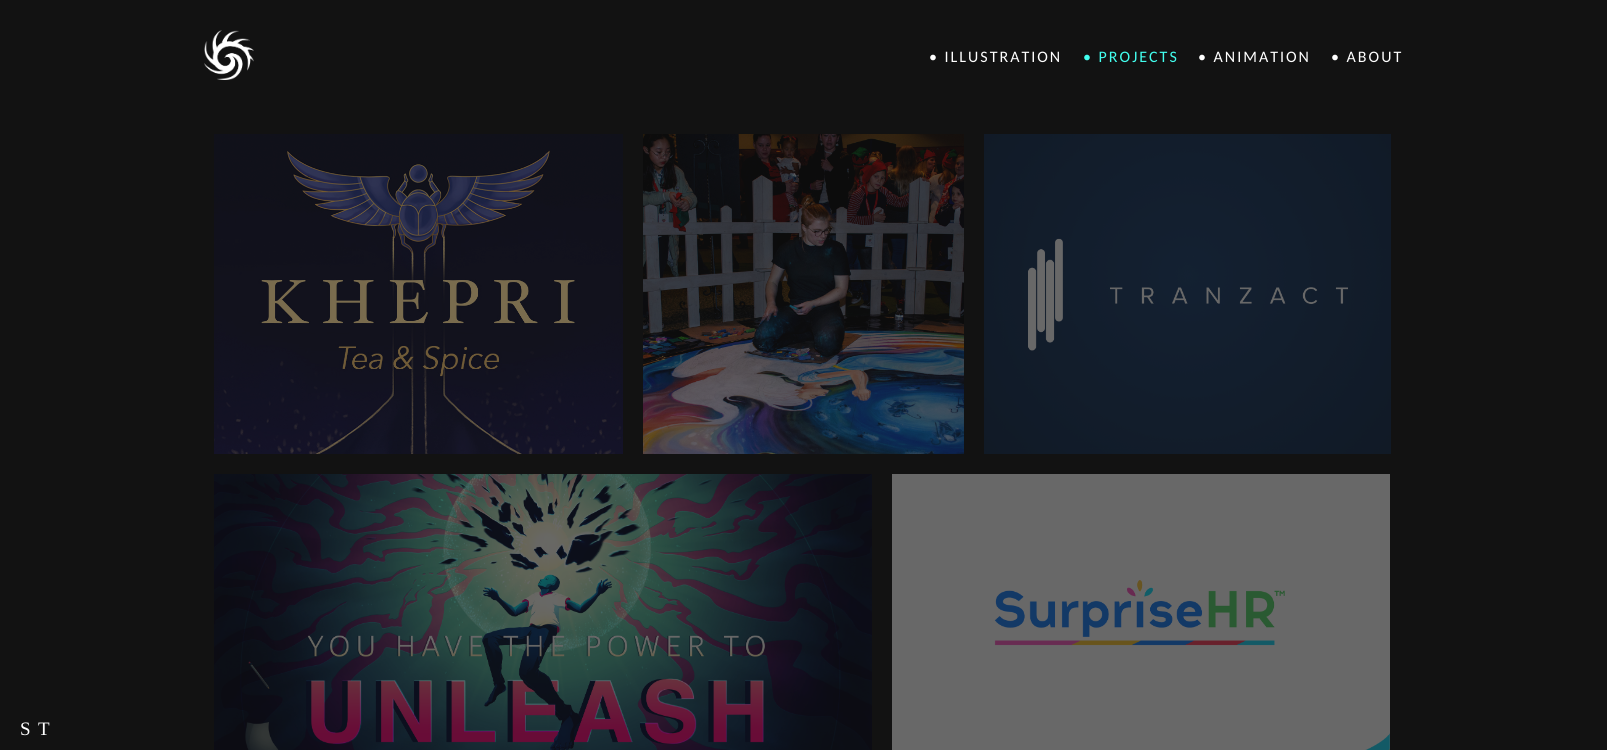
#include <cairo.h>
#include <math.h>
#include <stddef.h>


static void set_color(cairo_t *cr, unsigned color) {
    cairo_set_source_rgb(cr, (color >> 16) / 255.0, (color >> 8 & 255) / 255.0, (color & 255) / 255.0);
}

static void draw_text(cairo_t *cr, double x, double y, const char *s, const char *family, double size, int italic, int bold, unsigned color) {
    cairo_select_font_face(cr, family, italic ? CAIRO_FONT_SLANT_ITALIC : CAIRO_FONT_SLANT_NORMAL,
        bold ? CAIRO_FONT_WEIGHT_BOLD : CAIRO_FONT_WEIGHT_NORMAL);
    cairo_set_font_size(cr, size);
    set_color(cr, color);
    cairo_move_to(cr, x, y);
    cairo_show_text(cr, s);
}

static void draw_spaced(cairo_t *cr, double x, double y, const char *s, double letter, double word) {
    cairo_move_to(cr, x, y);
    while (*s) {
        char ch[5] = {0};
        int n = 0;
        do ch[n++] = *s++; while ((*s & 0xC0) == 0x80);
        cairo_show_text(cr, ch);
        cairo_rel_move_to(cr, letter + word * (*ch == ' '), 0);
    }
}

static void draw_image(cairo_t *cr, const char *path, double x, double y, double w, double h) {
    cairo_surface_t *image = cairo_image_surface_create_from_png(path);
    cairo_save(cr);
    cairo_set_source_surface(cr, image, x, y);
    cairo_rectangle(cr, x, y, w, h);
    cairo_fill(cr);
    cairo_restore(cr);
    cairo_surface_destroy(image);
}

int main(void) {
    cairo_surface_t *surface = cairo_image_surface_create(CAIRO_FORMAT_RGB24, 1607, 750);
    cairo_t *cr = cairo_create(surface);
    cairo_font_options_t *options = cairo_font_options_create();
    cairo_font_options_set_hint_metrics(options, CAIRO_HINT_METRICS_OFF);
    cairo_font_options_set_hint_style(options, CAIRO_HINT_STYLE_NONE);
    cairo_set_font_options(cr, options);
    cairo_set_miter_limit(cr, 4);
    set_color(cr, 0x121212);
    cairo_paint(cr);
    draw_image(cr, "assets/img1.png", 204, 30, 50, 50);
    cairo_select_font_face(cr, "Carlito", CAIRO_FONT_SLANT_NORMAL, CAIRO_FONT_WEIGHT_NORMAL);
    cairo_set_font_size(cr, 16);
    set_color(cr, 0xFFFFFF);
    draw_spaced(cr, 929, 62, "• ILLUSTRATION", 2, 0);
    set_color(cr, 0x42FFEF);
    draw_spaced(cr, 1083, 62, "• PROJECTS", 2, 0);
    set_color(cr, 0xFFFFFF);
    draw_spaced(cr, 1198, 62, "• ANIMATION", 2, 0);
    draw_spaced(cr, 1331, 62, "• ABOUT", 2, 0);
    draw_text(cr, 20, 735, "S", "Liberation Serif", 19, 0, 0, 0xFFFFFF);
    draw_text(cr, 38, 735, "T", "Liberation Serif", 19, 0, 0, 0xFFFFFF);
    draw_image(cr, "assets/img2.png", 214, 134, 409, 320);
    draw_image(cr, "assets/img3.png", 643, 134, 321, 320);
    draw_image(cr, "assets/img4.png", 984, 134, 407, 320);
    draw_image(cr, "assets/img5.png", 214, 474, 658, 276);
    draw_image(cr, "assets/img6.png", 892, 474, 498, 276);
    cairo_surface_write_to_png(surface, "output.png");
    cairo_font_options_destroy(options);
    cairo_destroy(cr);
    cairo_surface_destroy(surface);
    return 0;
}
